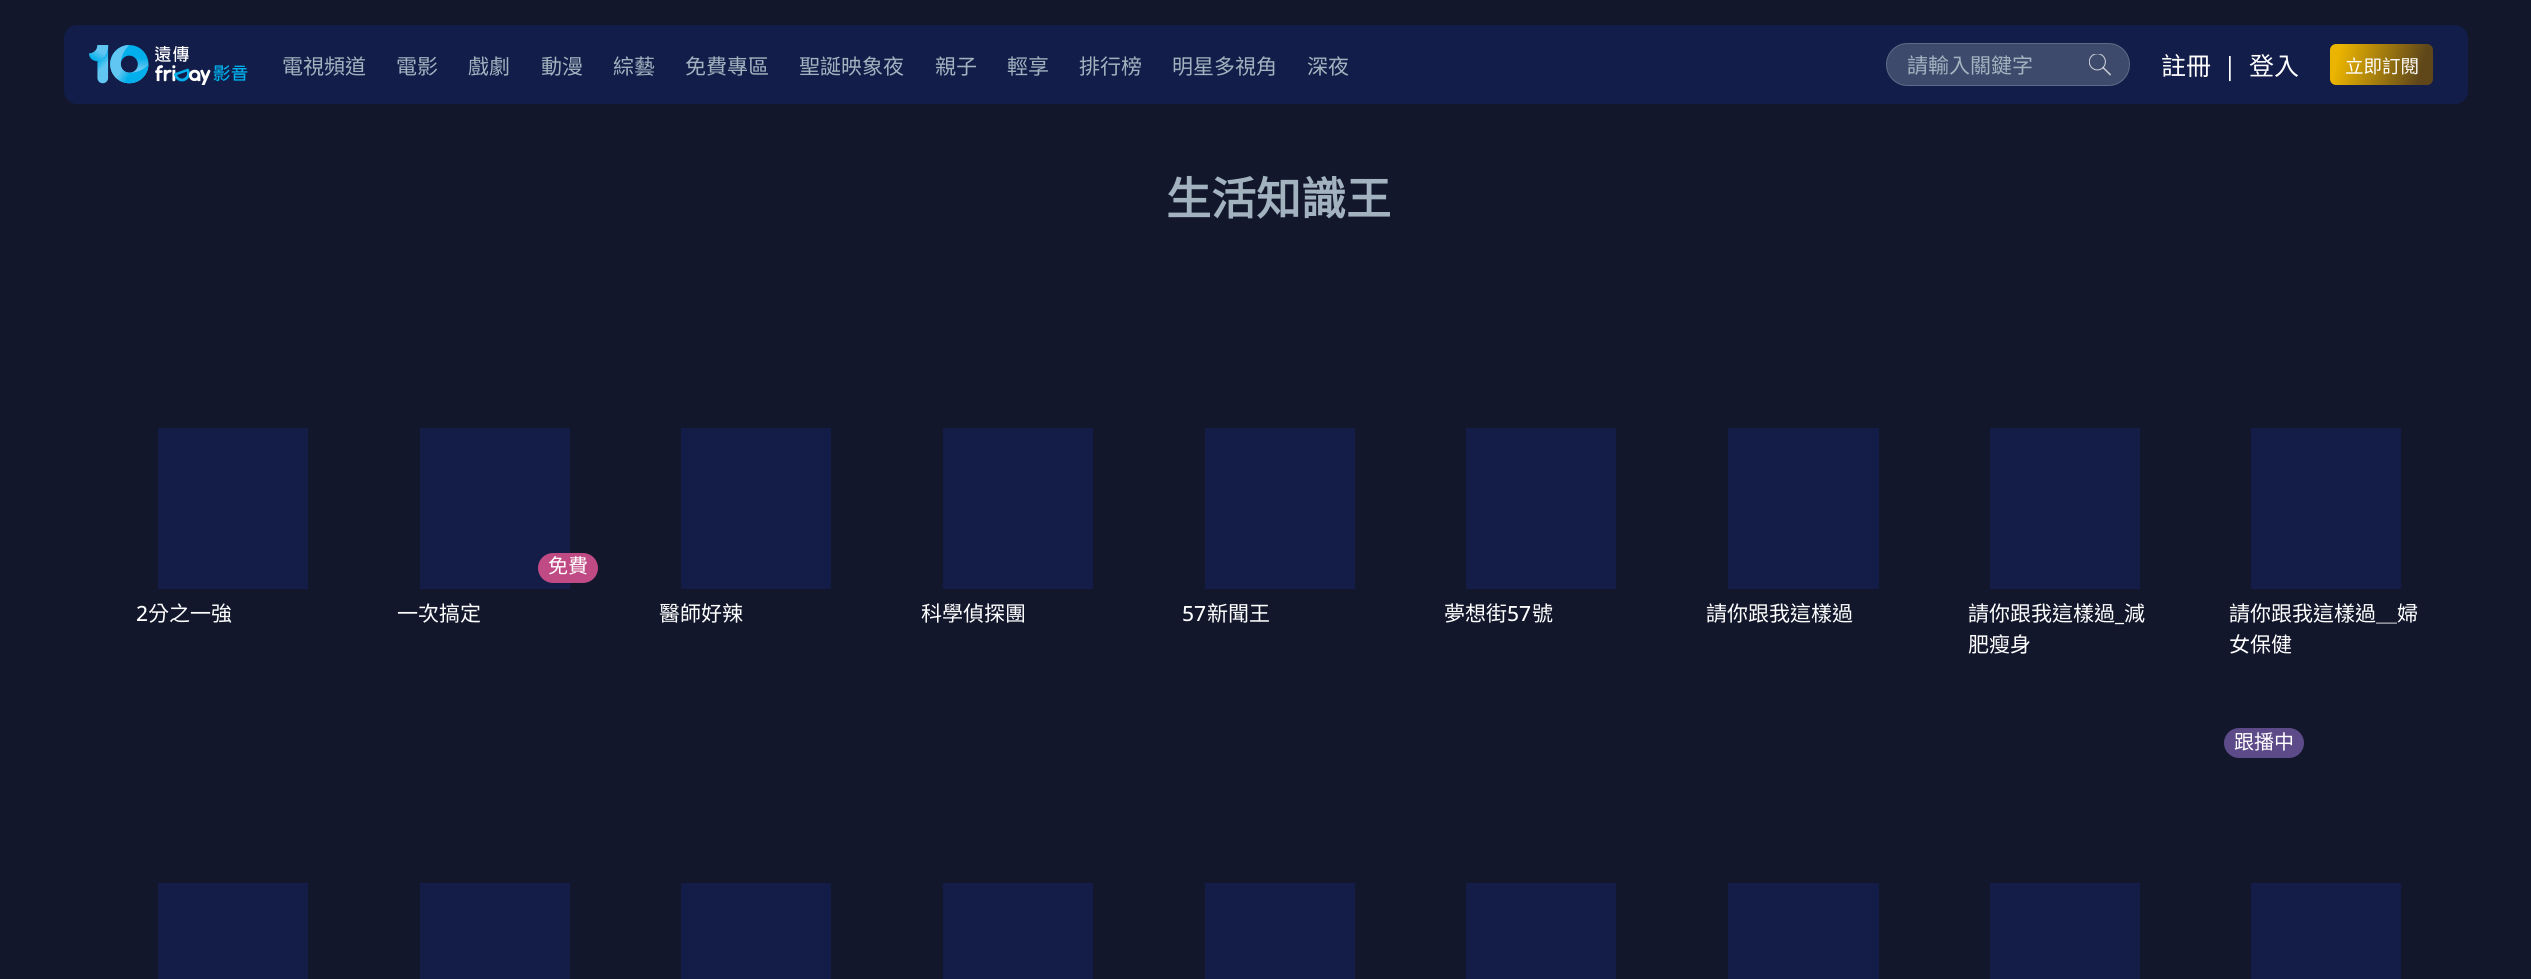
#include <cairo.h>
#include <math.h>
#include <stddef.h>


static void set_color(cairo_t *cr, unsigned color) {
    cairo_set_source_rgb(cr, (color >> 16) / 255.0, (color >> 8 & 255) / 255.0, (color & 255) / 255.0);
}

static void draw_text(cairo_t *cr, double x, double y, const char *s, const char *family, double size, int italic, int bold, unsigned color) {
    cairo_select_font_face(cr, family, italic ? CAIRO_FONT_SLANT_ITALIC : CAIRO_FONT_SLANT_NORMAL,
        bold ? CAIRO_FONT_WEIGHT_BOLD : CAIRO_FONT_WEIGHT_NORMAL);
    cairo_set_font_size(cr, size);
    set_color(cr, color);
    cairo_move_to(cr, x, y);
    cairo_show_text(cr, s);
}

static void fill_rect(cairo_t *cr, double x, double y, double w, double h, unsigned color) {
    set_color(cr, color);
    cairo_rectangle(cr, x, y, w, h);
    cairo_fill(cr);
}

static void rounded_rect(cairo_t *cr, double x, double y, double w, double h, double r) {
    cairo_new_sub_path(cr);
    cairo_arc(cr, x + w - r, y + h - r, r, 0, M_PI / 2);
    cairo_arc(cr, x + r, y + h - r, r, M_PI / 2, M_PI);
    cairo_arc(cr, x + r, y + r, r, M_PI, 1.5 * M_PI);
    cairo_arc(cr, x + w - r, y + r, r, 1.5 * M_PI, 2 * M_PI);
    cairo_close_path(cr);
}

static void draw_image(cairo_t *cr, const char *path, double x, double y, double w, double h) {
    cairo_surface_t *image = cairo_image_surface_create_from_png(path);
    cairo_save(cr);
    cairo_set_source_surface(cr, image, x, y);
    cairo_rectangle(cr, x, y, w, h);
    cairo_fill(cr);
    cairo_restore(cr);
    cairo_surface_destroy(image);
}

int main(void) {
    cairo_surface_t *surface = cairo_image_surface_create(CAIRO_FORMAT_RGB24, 2531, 979);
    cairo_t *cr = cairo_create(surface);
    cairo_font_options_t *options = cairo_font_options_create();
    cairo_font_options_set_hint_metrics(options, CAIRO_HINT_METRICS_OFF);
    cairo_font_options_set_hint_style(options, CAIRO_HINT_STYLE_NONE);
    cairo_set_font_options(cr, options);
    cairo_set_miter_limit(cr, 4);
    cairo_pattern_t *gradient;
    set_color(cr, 0x12172C);
    cairo_paint(cr);
    set_color(cr, 0x121D49);
    rounded_rect(cr, 64, 25, 2404, 79, 13);
    cairo_fill(cr);
    draw_image(cr, "assets/img1.png", 89, 45, 159, 40);
    draw_text(cr, 282, 74, "電視頻道", "Noto Sans CJK TC", 21, 0, 0, 0xA3B2BF);
    draw_text(cr, 396, 74, "電影", "Noto Sans CJK TC", 21, 0, 0, 0xA3B2BF);
    draw_text(cr, 468, 74, "戲劇", "Noto Sans CJK TC", 21, 0, 0, 0xA3B2BF);
    draw_text(cr, 541, 74, "動漫", "Noto Sans CJK TC", 21, 0, 0, 0xA3B2BF);
    draw_text(cr, 613, 74, "綜藝", "Noto Sans CJK TC", 21, 0, 0, 0xA3B2BF);
    draw_text(cr, 685, 74, "免費專區", "Noto Sans CJK TC", 21, 0, 0, 0xA3B2BF);
    draw_text(cr, 799, 74, "聖誕映象夜", "Noto Sans CJK TC", 21, 0, 0, 0xA3B2BF);
    draw_text(cr, 935, 74, "親子", "Noto Sans CJK TC", 21, 0, 0, 0xA3B2BF);
    draw_text(cr, 1007, 74, "輕享", "Noto Sans CJK TC", 21, 0, 0, 0xA3B2BF);
    draw_text(cr, 1079, 74, "排行榜", "Noto Sans CJK TC", 21, 0, 0, 0xA3B2BF);
    draw_text(cr, 1172, 74, "明星多視角", "Noto Sans CJK TC", 21, 0, 0, 0xA3B2BF);
    draw_text(cr, 1307, 74, "深夜", "Noto Sans CJK TC", 21, 0, 0, 0xA3B2BF);
    set_color(cr, 0x3E4A6C);
    rounded_rect(cr, 1886, 43, 244, 43, 21.5);
    cairo_fill(cr);
    rounded_rect(cr, 1886.5, 43.5, 243, 42, 21);
    cairo_set_source_rgba(cr, 0.639, 0.698, 0.749, 0.3);
    cairo_set_line_width(cr, 1);
    cairo_stroke(cr);
    draw_text(cr, 1907, 73, "請輸入關鍵字", "Noto Sans CJK TC", 21, 0, 0, 0xA3B2BF);
    draw_image(cr, "assets/img2.png", 2089, 54, 22, 22);
    draw_text(cr, 2161, 75, "註冊", "Noto Sans CJK TC", 25, 0, 0, 0xFFFFFF);
    draw_text(cr, 2223, 75, "|", "Open Sans", 25, 0, 0, 0xFFFFFF);
    draw_text(cr, 2249, 75, "登入", "Noto Sans CJK TC", 25, 0, 0, 0xFFFFFF);
    gradient = cairo_pattern_create_linear(2328, 51, 2434, 78);
    cairo_pattern_add_color_stop_rgba(gradient, 0.1, 0.922, 0.706, 0, 1);
    cairo_pattern_add_color_stop_rgba(gradient, 0.87, 0.373, 0.278, 0.102, 1);
    cairo_set_source(cr, gradient);
    cairo_pattern_destroy(gradient);
    rounded_rect(cr, 2330, 44, 103, 41, 6);
    cairo_fill(cr);
    draw_text(cr, 2345, 73, "立即訂閱", "Noto Sans CJK TC", 18.5, 0, 0, 0xFFFFFF);
    draw_text(cr, 1166, 215, "生活知識王", "Noto Sans CJK TC", 45, 0, 1, 0xA3B2BF);
    fill_rect(cr, 158, 428, 150, 161, 0x131D47);
    draw_text(cr, 136, 621, "2", "Open Sans Medium", 21, 0, 0, 0xFFFFFF);
    draw_text(cr, 148, 621, "分之一強", "Noto Sans CJK TC", 21, 0, 0, 0xFFFFFF);
    fill_rect(cr, 420, 428, 150, 161, 0x131D47);
    set_color(cr, 0xC04B84);
    rounded_rect(cr, 538, 553, 60, 30, 15);
    cairo_fill(cr);
    draw_text(cr, 548, 573, "免費", "Noto Sans CJK TC", 20, 0, 0, 0xFFFFFF);
    draw_text(cr, 397, 621, "一次搞定", "Noto Sans CJK TC", 21, 0, 0, 0xFFFFFF);
    fill_rect(cr, 681, 428, 150, 161, 0x131D47);
    draw_text(cr, 659, 621, "醫師好辣", "Noto Sans CJK TC", 21, 0, 0, 0xFFFFFF);
    fill_rect(cr, 943, 428, 150, 161, 0x131D47);
    draw_text(cr, 921, 621, "科學偵探團", "Noto Sans CJK TC", 21, 0, 0, 0xFFFFFF);
    fill_rect(cr, 1205, 428, 150, 161, 0x131D47);
    draw_text(cr, 1182, 621, "57", "Open Sans Medium", 21, 0, 0, 0xFFFFFF);
    draw_text(cr, 1207, 621, "新聞王", "Noto Sans CJK TC", 21, 0, 0, 0xFFFFFF);
    fill_rect(cr, 1466, 428, 150, 161, 0x131D47);
    draw_text(cr, 1444, 621, "夢想街", "Noto Sans CJK TC", 21, 0, 0, 0xFFFFFF);
    draw_text(cr, 1507, 621, "57", "Open Sans Medium", 21, 0, 0, 0xFFFFFF);
    draw_text(cr, 1532, 621, "號", "Noto Sans CJK TC", 21, 0, 0, 0xFFFFFF);
    fill_rect(cr, 1728, 428, 151, 161, 0x131D47);
    draw_text(cr, 1706, 621, "請你跟我這樣過", "Noto Sans CJK TC", 21, 0, 0, 0xFFFFFF);
    fill_rect(cr, 1990, 428, 150, 161, 0x131D47);
    draw_text(cr, 1968, 621, "請你跟我這樣過", "Noto Sans CJK TC", 21, 0, 0, 0xFFFFFF);
    draw_text(cr, 2124, 621, "減", "Noto Sans CJK TC", 21, 0, 0, 0xFFFFFF);
    draw_text(cr, 2115, 621, "_", "Open Sans Medium", 21, 0, 0, 0xFFFFFF);
    draw_text(cr, 1968, 652, "肥瘦身", "Noto Sans CJK TC", 21, 0, 0, 0xFFFFFF);
    fill_rect(cr, 2251, 428, 150, 161, 0x131D47);
    draw_text(cr, 2229, 621, "請你跟我這樣過＿婦", "Noto Sans CJK TC", 21, 0, 0, 0xFFFFFF);
    draw_text(cr, 2229, 652, "女保健", "Noto Sans CJK TC", 21, 0, 0, 0xFFFFFF);
    set_color(cr, 0x5D4A88);
    rounded_rect(cr, 2224, 728, 80, 30, 15);
    cairo_fill(cr);
    draw_text(cr, 2234, 749, "跟播中", "Noto Sans CJK TC", 20, 0, 0, 0xFFFFFF);
    fill_rect(cr, 2251, 883, 150, 96, 0x131D47);
    fill_rect(cr, 158, 883, 150, 96, 0x131D47);
    fill_rect(cr, 420, 883, 150, 96, 0x131D47);
    fill_rect(cr, 681, 883, 150, 96, 0x131D47);
    fill_rect(cr, 943, 883, 150, 96, 0x131D47);
    fill_rect(cr, 1205, 883, 150, 96, 0x131D47);
    fill_rect(cr, 1466, 883, 150, 96, 0x131D47);
    fill_rect(cr, 1728, 883, 151, 96, 0x131D47);
    fill_rect(cr, 1990, 883, 150, 96, 0x131D47);
    cairo_surface_write_to_png(surface, "output.png");
    cairo_font_options_destroy(options);
    cairo_destroy(cr);
    cairo_surface_destroy(surface);
    return 0;
}
